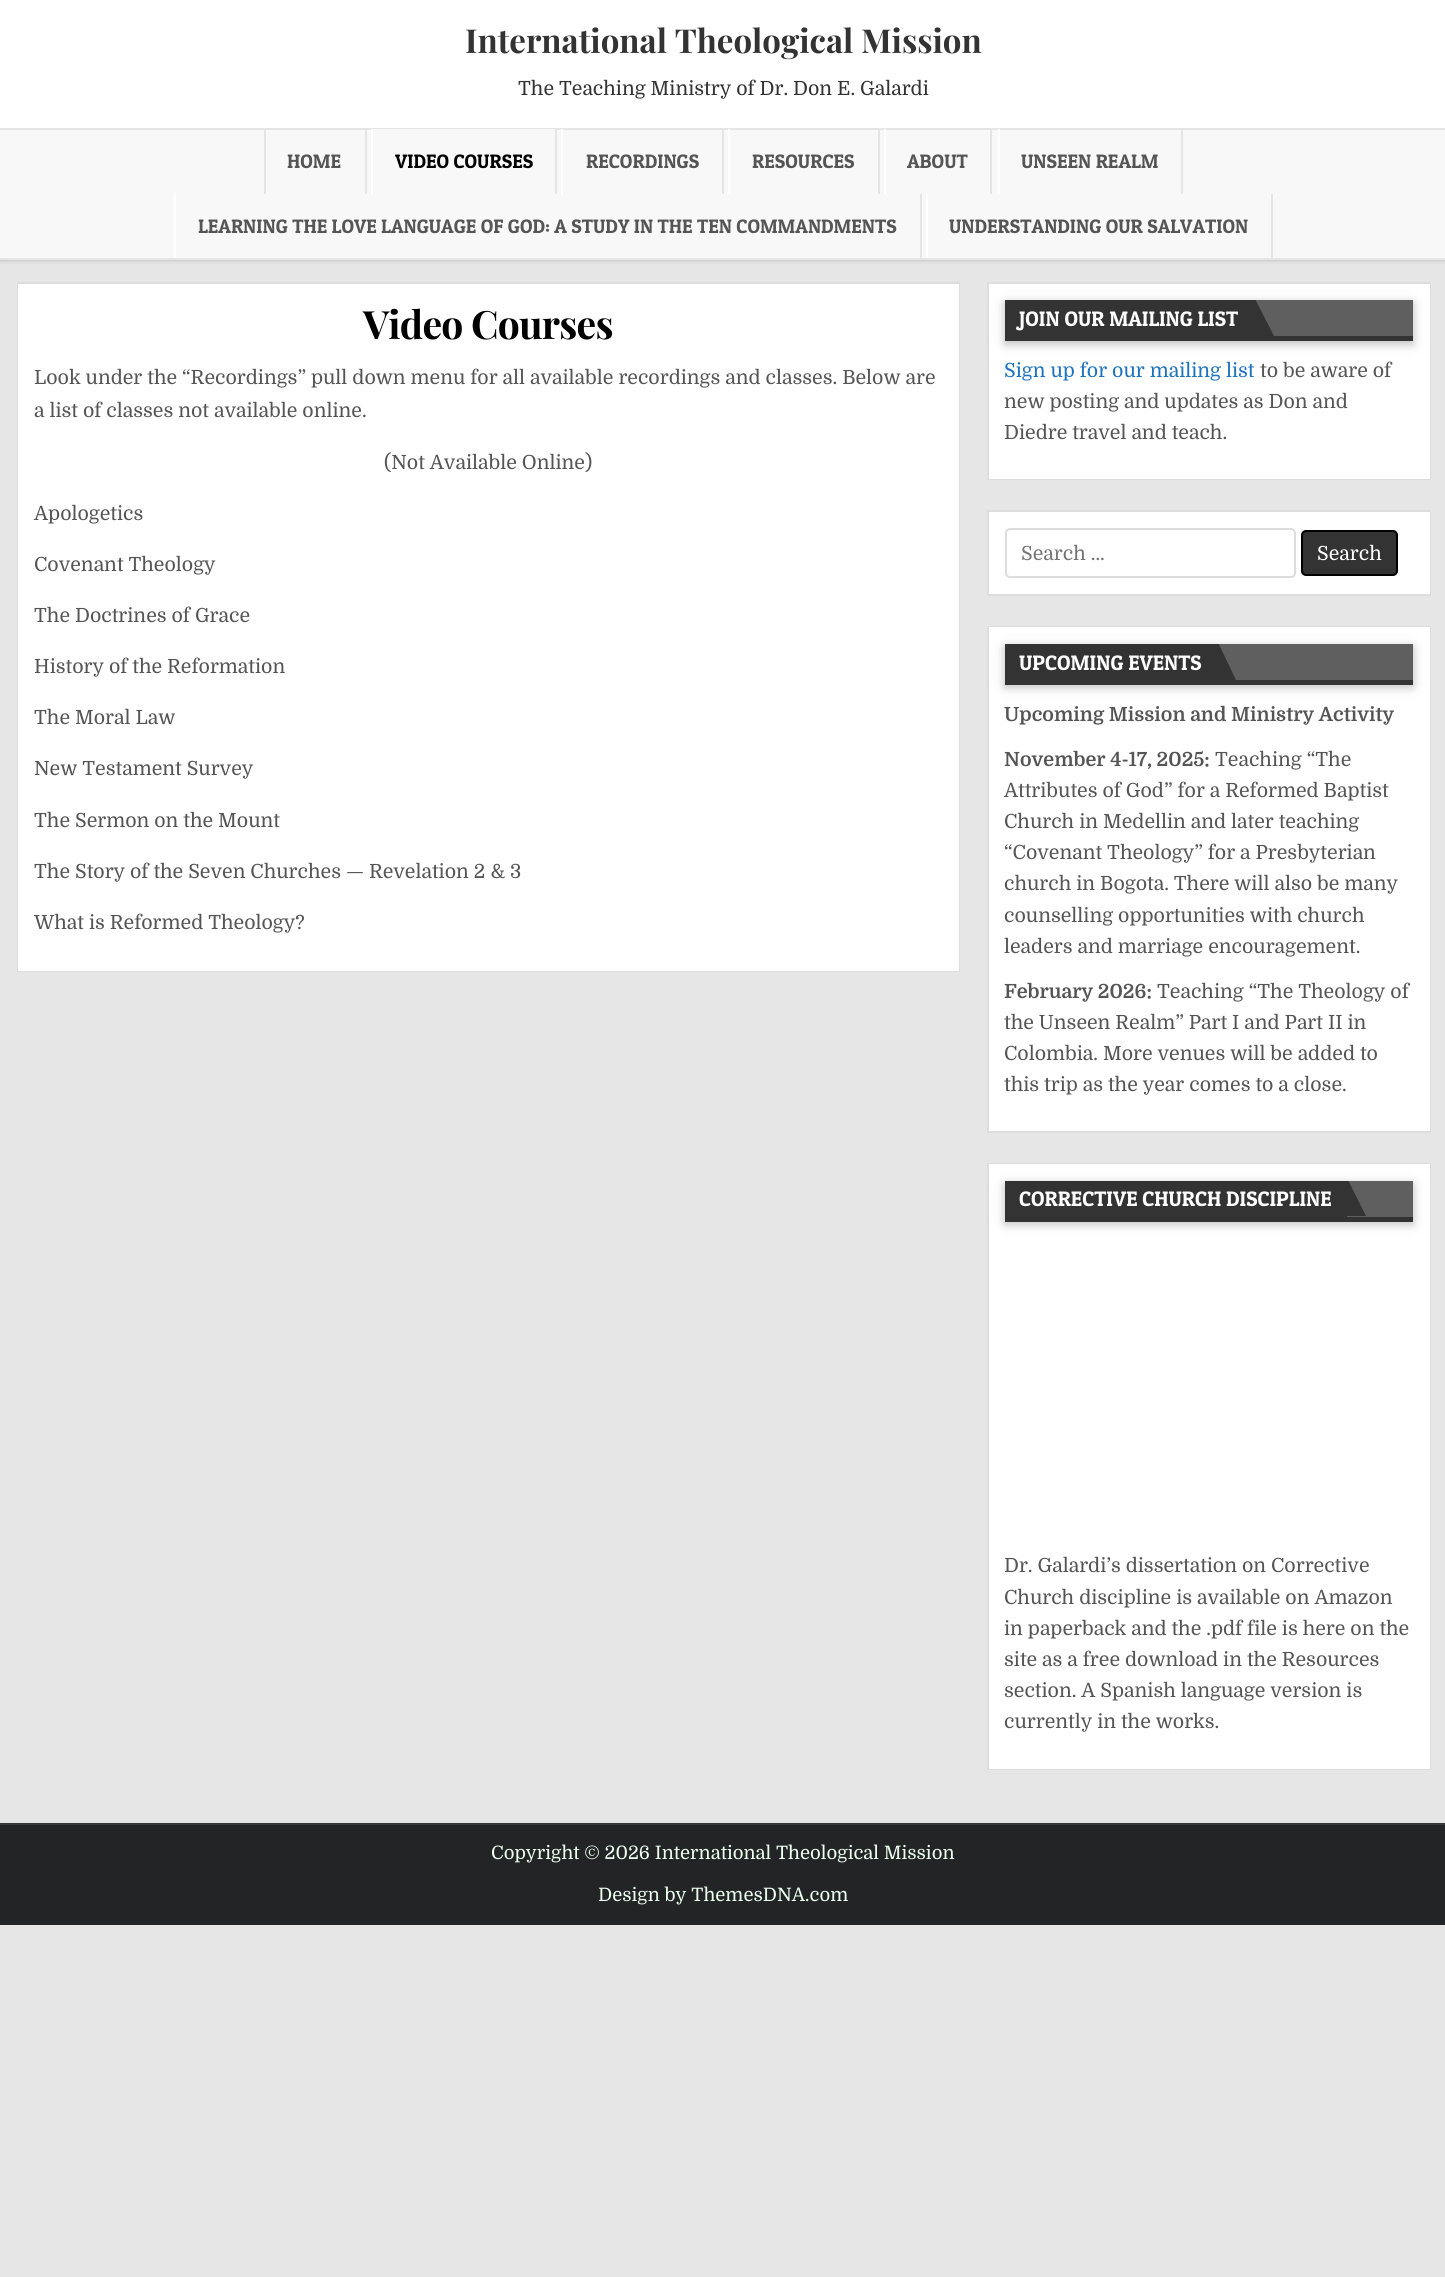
#include <cairo.h>
#include <math.h>
#include <stddef.h>


static void set_color(cairo_t *cr, unsigned color) {
    cairo_set_source_rgb(cr, (color >> 16) / 255.0, (color >> 8 & 255) / 255.0, (color & 255) / 255.0);
}

static void draw_text(cairo_t *cr, double x, double y, const char *s, const char *family, double size, int italic, int bold, unsigned color) {
    cairo_select_font_face(cr, family, italic ? CAIRO_FONT_SLANT_ITALIC : CAIRO_FONT_SLANT_NORMAL,
        bold ? CAIRO_FONT_WEIGHT_BOLD : CAIRO_FONT_WEIGHT_NORMAL);
    cairo_set_font_size(cr, size);
    set_color(cr, color);
    cairo_move_to(cr, x, y);
    cairo_show_text(cr, s);
}

static void draw_spaced(cairo_t *cr, double x, double y, const char *s, double letter, double word) {
    cairo_move_to(cr, x, y);
    while (*s) {
        char ch[5] = {0};
        int n = 0;
        do ch[n++] = *s++; while ((*s & 0xC0) == 0x80);
        cairo_show_text(cr, ch);
        cairo_rel_move_to(cr, letter + word * (*ch == ' '), 0);
    }
}

static void fill_rect(cairo_t *cr, double x, double y, double w, double h, unsigned color) {
    set_color(cr, color);
    cairo_rectangle(cr, x, y, w, h);
    cairo_fill(cr);
}

static void rounded_rect(cairo_t *cr, double x, double y, double w, double h, double r) {
    cairo_new_sub_path(cr);
    cairo_arc(cr, x + w - r, y + h - r, r, 0, M_PI / 2);
    cairo_arc(cr, x + r, y + h - r, r, M_PI / 2, M_PI);
    cairo_arc(cr, x + r, y + r, r, M_PI, 1.5 * M_PI);
    cairo_arc(cr, x + w - r, y + r, r, 1.5 * M_PI, 2 * M_PI);
    cairo_close_path(cr);
}

static void draw_shadow(cairo_t *cr, double x, double y, double w, double h, double r, double blur, double alpha) {
    cairo_push_group_with_content(cr, CAIRO_CONTENT_ALPHA);
    cairo_set_operator(cr, CAIRO_OPERATOR_SOURCE);
    for (int i = 15; i >= -15 && fmin(w, h) + blur * i / 3 > 0; i -= 2) {
        double e = blur * i / 6;
        cairo_set_source_rgba(cr, 0, 0, 0, alpha * erfc((i - 1) / 8.5) / 2);
        rounded_rect(cr, x - e, y - e, w + 2 * e, h + 2 * e, fmax(0, fmin(r + e + blur * .6, fmin(w, h) / 2 + e)));
        cairo_fill(cr);
    }
    cairo_pattern_t *soft = cairo_pop_group(cr);
    cairo_mask(cr, soft);
    cairo_pattern_destroy(soft);
}

int main(void) {
    cairo_surface_t *surface = cairo_image_surface_create(CAIRO_FORMAT_RGB24, 1445, 2277);
    cairo_t *cr = cairo_create(surface);
    cairo_font_options_t *options = cairo_font_options_create();
    cairo_font_options_set_hint_metrics(options, CAIRO_HINT_METRICS_OFF);
    cairo_font_options_set_hint_style(options, CAIRO_HINT_STYLE_NONE);
    cairo_set_font_options(cr, options);
    cairo_set_miter_limit(cr, 4);
    set_color(cr, 0xE6E6E6);
    cairo_paint(cr);
    set_color(cr, 0x000000);
    draw_shadow(cr, 0, 129, 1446, 132, 0, 2, 0.15);
    fill_rect(cr, 0, 0, 1445, 128, 0xFFFFFF);
    draw_text(cr, 465, 53, "International Theological Mission", "Playfair Display", 33, 0, 1, 0x333333);
    draw_text(cr, 518, 95, "The Teaching Ministry of Dr. Don E. Galardi", "Domine", 19.5, 0, 0, 0x333333);
    fill_rect(cr, 0, 130, 1445, 128, 0xF8F8F8);
    fill_rect(cr, 0, 128, 1445, 2, 0xE5E5E5);
    fill_rect(cr, 0, 258, 1445, 2, 0xE5E5E5);
    fill_rect(cr, 365, 129, 2, 65, 0xE5E5E5);
    fill_rect(cr, 264, 129, 2, 65, 0xE5E5E5);
    draw_text(cr, 287, 168, "HOME", "Patua One", 19.5, 0, 0, 0x555555);
    fill_rect(cr, 373, 129, 182, 1, 0xF8F8F8);
    fill_rect(cr, 555, 129, 2, 65, 0xE5E5E5);
    fill_rect(cr, 371, 129, 2, 65, 0xFFFFFF);
    draw_text(cr, 395, 168, "VIDEO COURSES", "Patua One", 19.5, 0, 0, 0x000000);
    fill_rect(cr, 722, 129, 2, 65, 0xE5E5E5);
    fill_rect(cr, 561, 129, 2, 65, 0xFFFFFF);
    draw_text(cr, 586, 168, "RECORDINGS", "Patua One", 19.5, 0, 0, 0x555555);
    fill_rect(cr, 878, 129, 2, 65, 0xE5E5E5);
    fill_rect(cr, 728, 129, 2, 65, 0xFFFFFF);
    draw_text(cr, 752, 168, "RESOURCES", "Patua One", 19.5, 0, 0, 0x555555);
    fill_rect(cr, 990, 129, 2, 65, 0xE5E5E5);
    fill_rect(cr, 884, 129, 2, 65, 0xFFFFFF);
    draw_text(cr, 907, 168, "ABOUT", "Patua One", 19.5, 0, 0, 0x555555);
    fill_rect(cr, 1181, 129, 2, 65, 0xE5E5E5);
    fill_rect(cr, 998, 129, 2, 65, 0xFFFFFF);
    draw_text(cr, 1021, 168, "UNSEEN REALM", "Patua One", 19.5, 0, 0, 0x555555);
    fill_rect(cr, 920, 194, 2, 64, 0xE5E5E5);
    fill_rect(cr, 174, 194, 2, 64, 0xFFFFFF);
    draw_text(cr, 198, 233, "LEARNING THE LOVE LANGUAGE OF GOD: A STUDY IN THE TEN COMMANDMENTS", "Patua One", 19.5, 0, 0, 0x555555);
    fill_rect(cr, 1271, 194, 2, 64, 0xE5E5E5);
    fill_rect(cr, 926, 194, 2, 64, 0xFFFFFF);
    draw_text(cr, 949, 233, "UNDERSTANDING OUR SALVATION", "Patua One", 19.5, 0, 0, 0x555555);
    fill_rect(cr, 20, 286, 937, 683, 0xFFFFFF);
    cairo_rectangle(cr, 18, 283, 941, 688);
    set_color(cr, 0xDDDDDD);
    cairo_stroke(cr);
    cairo_rectangle(cr, 19, 285, 939, 685);
    set_color(cr, 0xFFFFFF);
    cairo_stroke(cr);
    cairo_select_font_face(cr, "Playfair Display", CAIRO_FONT_SLANT_NORMAL, CAIRO_FONT_WEIGHT_BOLD);
    cairo_set_font_size(cr, 39);
    set_color(cr, 0x000000);
    draw_spaced(cr, 363, 339, "Video Courses", -0.75, 0);
    draw_text(cr, 34, 384, "Look under the “Recordings” pull down menu for all available recordings and classes. Below are", "Domine", 19.5, 0, 0, 0x555555);
    draw_text(cr, 34, 417, "a list of classes not available online.", "Domine", 19.5, 0, 0, 0x555555);
    draw_text(cr, 384, 469, "(Not Available Online)", "Domine", 19.5, 0, 0, 0x555555);
    draw_text(cr, 34, 520, "Apologetics", "Domine", 19.5, 0, 0, 0x555555);
    draw_text(cr, 34, 571, "Covenant Theology", "Domine", 19.5, 0, 0, 0x555555);
    draw_text(cr, 34, 622, "The Doctrines of Grace", "Domine", 19.5, 0, 0, 0x555555);
    draw_text(cr, 34, 673, "History of the Reformation", "Domine", 19.5, 0, 0, 0x555555);
    draw_text(cr, 34, 724, "The Moral Law", "Domine", 19.5, 0, 0, 0x555555);
    draw_text(cr, 34, 775, "New Testament Survey", "Domine", 19.5, 0, 0, 0x555555);
    draw_text(cr, 34, 827, "The Sermon on the Mount", "Domine", 19.5, 0, 0, 0x555555);
    draw_text(cr, 34, 878, "The Story of the Seven Churches — Revelation 2 & 3", "Domine", 19.5, 0, 0, 0x555555);
    draw_text(cr, 34, 929, "What is Reformed Theology?", "Domine", 19.5, 0, 0, 0x555555);
    fill_rect(cr, 991, 286, 437, 191, 0xFFFFFF);
    cairo_rectangle(cr, 988, 283, 442, 196);
    set_color(cr, 0xDDDDDD);
    cairo_stroke(cr);
    cairo_rectangle(cr, 990, 285, 439, 193);
    set_color(cr, 0xFFFFFF);
    cairo_stroke(cr);
    set_color(cr, 0x000000);
    draw_shadow(cr, 1005, 303, 408, 41, 0, 7.5, 0.12);
    draw_shadow(cr, 1005, 303, 408, 41, 0, 4, 0.16);
    fill_rect(cr, 1255, 300, 158, 36, 0x5F5F5F);
    fill_rect(cr, 1005, 336, 408, 5, 0x333333);
    fill_rect(cr, 1005, 300, 246, 36, 0x333333);
    draw_text(cr, 1019, 326, "JOIN OUR MAILING LIST", "Patua One", 21, 0, 0, 0xFFFFFF);
    cairo_save(cr);
    cairo_rectangle(cr, 1005, 300, 408, 36);
    cairo_clip(cr);
    set_color(cr, 0x333333);
    cairo_new_path(cr);
    cairo_move_to(cr, 1251, 336);
    cairo_line_to(cr, 1251, 291);
    cairo_line_to(cr, 1274, 336);
    cairo_close_path(cr);
    cairo_fill(cr);
    cairo_restore(cr);
    draw_text(cr, 1004, 377, "Sign up for our mailing list", "Domine", 19.5, 0, 0, 0x1E73BE);
    draw_text(cr, 1260, 377, "to be aware of", "Domine", 19.5, 0, 0, 0x555555);
    draw_text(cr, 1004, 408, "new posting and updates as Don and", "Domine", 19.5, 0, 0, 0x555555);
    draw_text(cr, 1004, 439, "Diedre travel and teach.", "Domine", 19.5, 0, 0, 0x555555);
    fill_rect(cr, 991, 514, 437, 78, 0xFFFFFF);
    cairo_rectangle(cr, 988, 511, 442, 84);
    set_color(cr, 0xDDDDDD);
    cairo_stroke(cr);
    cairo_rectangle(cr, 990, 513, 439, 80);
    set_color(cr, 0xFFFFFF);
    cairo_stroke(cr);
    rounded_rect(cr, 1006, 529, 289, 48, 4);
    set_color(cr, 0xDDDDDD);
    cairo_stroke(cr);
    draw_text(cr, 1021, 560, "Search …", "Domine", 19.5, 0, 0, 0x757575);
    set_color(cr, 0x333333);
    rounded_rect(cr, 1302, 531, 95, 44, 4);
    cairo_fill_preserve(cr);
    set_color(cr, 0x000000);
    cairo_stroke(cr);
    draw_text(cr, 1317, 560, "Search", "Domine", 19.5, 0, 0, 0xFFFFFF);
    fill_rect(cr, 991, 629, 437, 500, 0xFFFFFF);
    cairo_rectangle(cr, 988, 627, 442, 505);
    set_color(cr, 0xDDDDDD);
    cairo_stroke(cr);
    cairo_rectangle(cr, 990, 628, 439, 502);
    set_color(cr, 0xFFFFFF);
    cairo_stroke(cr);
    set_color(cr, 0x000000);
    draw_shadow(cr, 1005, 647, 408, 40, 0, 7.5, 0.12);
    draw_shadow(cr, 1005, 647, 408, 40, 0, 4, 0.16);
    fill_rect(cr, 1218, 644, 195, 36, 0x5F5F5F);
    fill_rect(cr, 1005, 680, 408, 5, 0x333333);
    fill_rect(cr, 1005, 644, 209, 36, 0x333333);
    draw_text(cr, 1019, 670, "UPCOMING EVENTS", "Patua One", 21, 0, 0, 0xFFFFFF);
    cairo_save(cr);
    cairo_rectangle(cr, 1005, 644, 408, 36);
    cairo_clip(cr);
    set_color(cr, 0x333333);
    cairo_new_path(cr);
    cairo_move_to(cr, 1214, 680);
    cairo_line_to(cr, 1214, 634);
    cairo_line_to(cr, 1236, 680);
    cairo_close_path(cr);
    cairo_fill(cr);
    cairo_restore(cr);
    draw_text(cr, 1004, 721, "Upcoming Mission and Ministry Activity", "Domine", 19.5, 0, 1, 0x555555);
    draw_text(cr, 1004, 766, "November 4-17, 2025:", "Domine", 19.5, 0, 1, 0x555555);
    draw_text(cr, 1215, 766, "Teaching “The", "Domine", 19.5, 0, 0, 0x555555);
    draw_text(cr, 1004, 797, "Attributes of God” for a Reformed Baptist", "Domine", 19.5, 0, 0, 0x555555);
    draw_text(cr, 1004, 828, "Church in Medellin and later teaching", "Domine", 19.5, 0, 0, 0x555555);
    draw_text(cr, 1004, 859, "“Covenant Theology” for a Presbyterian", "Domine", 19.5, 0, 0, 0x555555);
    draw_text(cr, 1004, 890, "church in Bogota. There will also be many", "Domine", 19.5, 0, 0, 0x555555);
    draw_text(cr, 1004, 922, "counselling opportunities with church", "Domine", 19.5, 0, 0, 0x555555);
    draw_text(cr, 1004, 953, "leaders and marriage encouragement.", "Domine", 19.5, 0, 0, 0x555555);
    draw_text(cr, 1004, 998, "February 2026:", "Domine", 19.5, 0, 1, 0x555555);
    draw_text(cr, 1157, 998, "Teaching “The Theology of", "Domine", 19.5, 0, 0, 0x555555);
    draw_text(cr, 1004, 1029, "the Unseen Realm” Part I and Part II in", "Domine", 19.5, 0, 0, 0x555555);
    draw_text(cr, 1004, 1060, "Colombia. More venues will be added to", "Domine", 19.5, 0, 0, 0x555555);
    draw_text(cr, 1004, 1091, "this trip as the year comes to a close.", "Domine", 19.5, 0, 0, 0x555555);
    fill_rect(cr, 991, 1166, 437, 601, 0xFFFFFF);
    cairo_rectangle(cr, 988, 1164, 442, 605);
    set_color(cr, 0xDDDDDD);
    cairo_stroke(cr);
    cairo_rectangle(cr, 990, 1165, 439, 603);
    set_color(cr, 0xFFFFFF);
    cairo_stroke(cr);
    set_color(cr, 0x000000);
    draw_shadow(cr, 1005, 1184, 408, 40, 0, 7.5, 0.12);
    draw_shadow(cr, 1005, 1184, 408, 40, 0, 4, 0.16);
    fill_rect(cr, 1347, 1181, 66, 36, 0x5F5F5F);
    fill_rect(cr, 1005, 1217, 408, 5, 0x333333);
    fill_rect(cr, 1005, 1181, 342, 36, 0x333333);
    draw_text(cr, 1019, 1206, "CORRECTIVE CHURCH DISCIPLINE", "Patua One", 21, 0, 0, 0xFFFFFF);
    cairo_save(cr);
    cairo_rectangle(cr, 1005, 1181, 408, 36);
    cairo_clip(cr);
    set_color(cr, 0x333333);
    cairo_new_path(cr);
    cairo_move_to(cr, 1344, 1216);
    cairo_line_to(cr, 1344, 1172);
    cairo_line_to(cr, 1366, 1216);
    cairo_close_path(cr);
    cairo_fill(cr);
    cairo_restore(cr);
    draw_text(cr, 1004, 1572, "Dr. Galardi’s dissertation on Corrective", "Domine", 19.5, 0, 0, 0x555555);
    draw_text(cr, 1004, 1604, "Church discipline is available on Amazon", "Domine", 19.5, 0, 0, 0x555555);
    draw_text(cr, 1004, 1635, "in paperback and the .pdf file is here on the", "Domine", 19.5, 0, 0, 0x555555);
    draw_text(cr, 1004, 1666, "site as a free download in the Resources", "Domine", 19.5, 0, 0, 0x555555);
    draw_text(cr, 1004, 1697, "section. A Spanish language version is", "Domine", 19.5, 0, 0, 0x555555);
    draw_text(cr, 1004, 1728, "currently in the works.", "Domine", 19.5, 0, 0, 0x555555);
    fill_rect(cr, 0, 1825, 1445, 100, 0x232425);
    fill_rect(cr, 0, 1823, 1445, 2, 0x383737);
    draw_text(cr, 491, 1859, "Copyright © 2026 International Theological Mission", "Domine", 18.5, 0, 0, 0xECFFF1);
    draw_text(cr, 598, 1901, "Design by ThemesDNA.com", "Domine", 18.5, 0, 0, 0xECFFF1);
    cairo_surface_write_to_png(surface, "output.png");
    cairo_font_options_destroy(options);
    cairo_destroy(cr);
    cairo_surface_destroy(surface);
    return 0;
}
